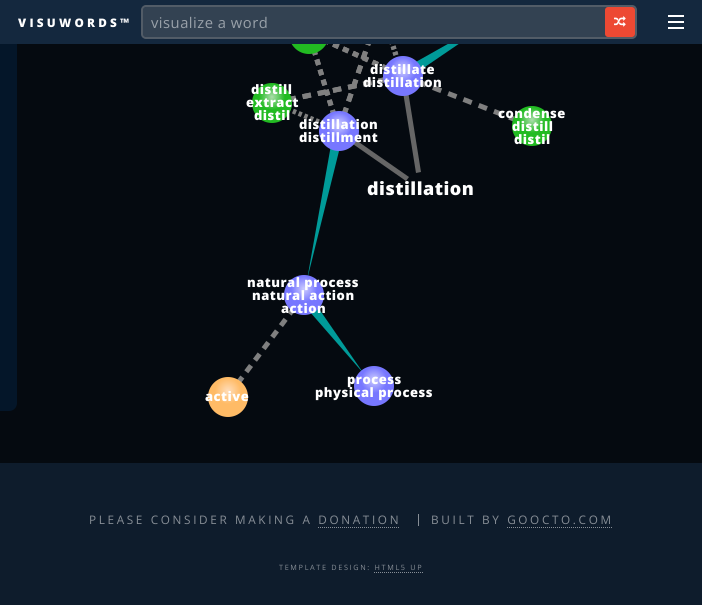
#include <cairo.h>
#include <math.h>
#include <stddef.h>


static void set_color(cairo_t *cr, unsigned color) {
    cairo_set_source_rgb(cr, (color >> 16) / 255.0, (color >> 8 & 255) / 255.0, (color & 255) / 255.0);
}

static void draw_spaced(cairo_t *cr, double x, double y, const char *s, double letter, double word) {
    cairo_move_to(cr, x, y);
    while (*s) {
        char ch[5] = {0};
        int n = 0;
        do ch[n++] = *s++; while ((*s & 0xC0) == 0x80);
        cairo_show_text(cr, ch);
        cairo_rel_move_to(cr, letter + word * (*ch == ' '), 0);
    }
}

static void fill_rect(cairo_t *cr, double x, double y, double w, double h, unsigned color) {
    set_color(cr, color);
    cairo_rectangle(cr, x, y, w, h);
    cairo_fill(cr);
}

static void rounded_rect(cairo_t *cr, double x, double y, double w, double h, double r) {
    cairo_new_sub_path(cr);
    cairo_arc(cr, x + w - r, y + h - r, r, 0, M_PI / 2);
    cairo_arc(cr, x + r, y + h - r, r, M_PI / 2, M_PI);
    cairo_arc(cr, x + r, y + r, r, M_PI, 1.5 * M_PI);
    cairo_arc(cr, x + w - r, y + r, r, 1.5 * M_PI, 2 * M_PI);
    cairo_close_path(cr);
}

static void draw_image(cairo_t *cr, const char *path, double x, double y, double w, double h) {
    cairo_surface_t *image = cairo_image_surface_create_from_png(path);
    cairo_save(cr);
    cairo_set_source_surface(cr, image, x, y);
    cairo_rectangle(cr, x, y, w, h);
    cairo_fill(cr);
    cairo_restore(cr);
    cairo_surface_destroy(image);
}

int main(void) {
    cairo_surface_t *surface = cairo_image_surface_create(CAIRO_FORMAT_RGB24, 702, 605);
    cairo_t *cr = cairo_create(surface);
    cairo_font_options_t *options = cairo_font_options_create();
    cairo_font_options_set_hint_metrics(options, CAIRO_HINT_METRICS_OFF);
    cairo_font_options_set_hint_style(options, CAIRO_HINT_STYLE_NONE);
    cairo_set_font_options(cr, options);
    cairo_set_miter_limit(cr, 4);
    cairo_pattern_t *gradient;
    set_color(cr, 0x0E1C2C);
    cairo_paint(cr);
    fill_rect(cr, 0, 44, 702, 419, 0x050A10);
    set_color(cr, 0x041629);
    cairo_new_path(cr);
    cairo_move_to(cr, 0, -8);
    cairo_line_to(cr, 9, -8);
    cairo_curve_to(cr, 13.5, -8, 17, -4.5, 17, 0);
    cairo_line_to(cr, 17, 403);
    cairo_curve_to(cr, 17, 407.5, 13.5, 411, 9, 411);
    cairo_line_to(cr, 0, 411);
    cairo_close_path(cr);
    cairo_fill(cr);
    draw_image(cr, "assets/img4.png", 342, 44, 29, 70);
    draw_image(cr, "assets/img5.png", 342, 44, 29, 70);
    draw_image(cr, "assets/img7.png", 312, 51, 24, 63);
    draw_image(cr, "assets/img13.png", 289, 107, 34, 18);
    draw_image(cr, "assets/img9.png", 312, 51, 24, 63);
    draw_image(cr, "assets/img2.png", 326, 44, 61, 26);
    draw_image(cr, "assets/img3.png", 326, 44, 61, 26);
    gradient = cairo_pattern_create_radial(309, 28, 0, 309, 28, 13);
    cairo_pattern_add_color_stop_rgba(gradient, 0, 0.667, 0.867, 0.667, 1);
    cairo_pattern_add_color_stop_rgba(gradient, 1, 0.133, 0.733, 0.133, 1);
    cairo_set_source(cr, gradient);
    cairo_pattern_destroy(gradient);
    cairo_arc(cr, 309, 34, 20, 0, 2 * M_PI);
    cairo_fill(cr);
    set_color(cr, 0x009B99);
    cairo_new_path(cr);
    cairo_move_to(cr, 414, 63);
    cairo_line_to(cr, 419, 71);
    cairo_line_to(cr, 510, 9);
    cairo_close_path(cr);
    cairo_fill(cr);
    fill_rect(cr, 0, 0, 702, 44, 0x14283E);
    cairo_select_font_face(cr, "Open Sans ExtraBold", CAIRO_FONT_SLANT_NORMAL, CAIRO_FONT_WEIGHT_NORMAL);
    cairo_set_font_size(cr, 11.75);
    set_color(cr, 0xFFFFFF);
    draw_spaced(cr, 18, 27, "VISUWORDS™", 3.25, 0);
    rounded_rect(cr, 142, 6, 494, 32, 4);
    set_color(cr, 0x525C67);
    cairo_stroke(cr);
    cairo_set_source_rgba(cr, 0.565, 0.565, 0.565, 0.25);
    rounded_rect(cr, 143, 7, 492, 30, 3);
    cairo_fill(cr);
    cairo_select_font_face(cr, "Open Sans", CAIRO_FONT_SLANT_NORMAL, CAIRO_FONT_WEIGHT_NORMAL);
    cairo_set_font_size(cr, 14.75);
    set_color(cr, 0x99A1A9);
    draw_spaced(cr, 151, 28, "visualize a word", 0.5, 0);
    set_color(cr, 0xED4933);
    rounded_rect(cr, 605, 7, 30, 30, 3);
    cairo_fill(cr);
    draw_image(cr, "assets/img1.png", 614, 16, 12, 11);
    fill_rect(cr, 668, 15, 16, 2, 0xFFFFFF);
    fill_rect(cr, 668, 21, 16, 2, 0xFFFFFF);
    fill_rect(cr, 668, 27, 16, 2, 0xFFFFFF);
    draw_image(cr, "assets/img6.png", 389, 44, 11, 15);
    draw_image(cr, "assets/img8.png", 389, 44, 11, 15);
    draw_image(cr, "assets/img10.png", 290, 77, 95, 25);
    draw_image(cr, "assets/img11.png", 290, 77, 95, 25);
    set_color(cr, 0x666666);
    cairo_new_path(cr);
    cairo_move_to(cr, 406, 181);
    cairo_line_to(cr, 409, 177);
    cairo_line_to(cr, 353, 138);
    cairo_line_to(cr, 350, 142);
    cairo_close_path(cr);
    cairo_fill(cr);
    cairo_new_path(cr);
    cairo_move_to(cr, 421, 172);
    cairo_line_to(cr, 408, 91);
    cairo_line_to(cr, 403, 92);
    cairo_line_to(cr, 416, 173);
    cairo_close_path(cr);
    cairo_fill(cr);
    draw_image(cr, "assets/img12.png", 420, 80, 95, 42);
    gradient = cairo_pattern_create_radial(403, 70, 0, 403, 70, 13);
    cairo_pattern_add_color_stop_rgba(gradient, 0, 0.8, 0.8, 1, 1);
    cairo_pattern_add_color_stop_rgba(gradient, 1, 0.467, 0.467, 1, 1);
    cairo_set_source(cr, gradient);
    cairo_pattern_destroy(gradient);
    cairo_arc(cr, 403, 76, 20, 0, 2 * M_PI);
    cairo_fill(cr);
    cairo_select_font_face(cr, "Open Sans ExtraBold", CAIRO_FONT_SLANT_NORMAL, CAIRO_FONT_WEIGHT_NORMAL);
    cairo_set_font_size(cr, 13);
    set_color(cr, 0xFFFFFF);
    draw_spaced(cr, 370, 74, "distillate", 0.5, 0);
    draw_spaced(cr, 363, 87, "distillation", 0.5, 0);
    gradient = cairo_pattern_create_radial(272, 97, 0, 272, 97, 13);
    cairo_pattern_add_color_stop_rgba(gradient, 0, 0.667, 0.867, 0.667, 1);
    cairo_pattern_add_color_stop_rgba(gradient, 1, 0.133, 0.733, 0.133, 1);
    cairo_set_source(cr, gradient);
    cairo_pattern_destroy(gradient);
    cairo_new_path(cr);
    cairo_arc(cr, 272, 103, 20, 0, 2 * M_PI);
    cairo_fill(cr);
    set_color(cr, 0xFFFFFF);
    draw_spaced(cr, 251, 94, "distill", 0.5, 0);
    draw_spaced(cr, 246, 107, "extract", 0.5, 0);
    draw_spaced(cr, 254, 120, "distil", 0.5, 0);
    gradient = cairo_pattern_create_radial(532, 120, 0, 532, 120, 13);
    cairo_pattern_add_color_stop_rgba(gradient, 0, 0.667, 0.867, 0.667, 1);
    cairo_pattern_add_color_stop_rgba(gradient, 1, 0.133, 0.733, 0.133, 1);
    cairo_set_source(cr, gradient);
    cairo_pattern_destroy(gradient);
    cairo_new_path(cr);
    cairo_arc(cr, 532, 126, 20, 0, 2 * M_PI);
    cairo_fill(cr);
    set_color(cr, 0xFFFFFF);
    draw_spaced(cr, 498, 118, "condense", 0.5, 0);
    draw_spaced(cr, 512, 131, "distill", 0.5, 0);
    draw_spaced(cr, 514, 144, "distil", 0.5, 0);
    set_color(cr, 0x009B99);
    cairo_new_path(cr);
    cairo_move_to(cr, 340, 147);
    cairo_line_to(cr, 331, 145);
    cairo_line_to(cr, 307, 280);
    cairo_close_path(cr);
    cairo_fill(cr);
    gradient = cairo_pattern_create_radial(339, 125, 0, 339, 125, 13);
    cairo_pattern_add_color_stop_rgba(gradient, 0, 0.8, 0.8, 1, 1);
    cairo_pattern_add_color_stop_rgba(gradient, 1, 0.467, 0.467, 1, 1);
    cairo_set_source(cr, gradient);
    cairo_pattern_destroy(gradient);
    cairo_arc(cr, 339, 131, 20, 0, 2 * M_PI);
    cairo_fill(cr);
    set_color(cr, 0xFFFFFF);
    draw_spaced(cr, 299, 129, "distillation", 0.5, 0);
    draw_spaced(cr, 299, 142, "distillment", 0.5, 0);
    cairo_set_font_size(cr, 18);
    draw_spaced(cr, 367, 195, "distillation", 0.5, 0);
    draw_image(cr, "assets/img14.png", 237, 309, 58, 74);
    set_color(cr, 0x009B99);
    cairo_new_path(cr);
    cairo_move_to(cr, 317, 306);
    cairo_line_to(cr, 310, 312);
    cairo_line_to(cr, 364, 374);
    cairo_close_path(cr);
    cairo_fill(cr);
    gradient = cairo_pattern_create_radial(304, 289, 0, 304, 289, 13);
    cairo_pattern_add_color_stop_rgba(gradient, 0, 0.8, 0.8, 1, 1);
    cairo_pattern_add_color_stop_rgba(gradient, 1, 0.467, 0.467, 1, 1);
    cairo_set_source(cr, gradient);
    cairo_pattern_destroy(gradient);
    cairo_arc(cr, 304, 295, 20, 0, 2 * M_PI);
    cairo_fill(cr);
    cairo_set_font_size(cr, 13);
    set_color(cr, 0xFFFFFF);
    draw_spaced(cr, 247, 287, "natural process", 0.5, 0);
    draw_spaced(cr, 252, 300, "natural action", 0.5, 0);
    draw_spaced(cr, 281, 313, "action", 0.5, 0);
    gradient = cairo_pattern_create_radial(228, 391, 0, 228, 391, 13);
    cairo_pattern_add_color_stop_rgba(gradient, 0, 1, 0.867, 0.733, 1);
    cairo_pattern_add_color_stop_rgba(gradient, 1, 1, 0.733, 0.4, 1);
    cairo_set_source(cr, gradient);
    cairo_pattern_destroy(gradient);
    cairo_new_path(cr);
    cairo_arc(cr, 228, 397, 20, 0, 2 * M_PI);
    cairo_fill(cr);
    set_color(cr, 0xFFFFFF);
    draw_spaced(cr, 205, 401, "active", 0.5, 0);
    gradient = cairo_pattern_create_radial(374, 380, 0, 374, 380, 13);
    cairo_pattern_add_color_stop_rgba(gradient, 0, 0.8, 0.8, 1, 1);
    cairo_pattern_add_color_stop_rgba(gradient, 1, 0.467, 0.467, 1, 1);
    cairo_set_source(cr, gradient);
    cairo_pattern_destroy(gradient);
    cairo_new_path(cr);
    cairo_arc(cr, 374, 386, 20, 0, 2 * M_PI);
    cairo_fill(cr);
    set_color(cr, 0xFFFFFF);
    draw_spaced(cr, 347, 384, "process", 0.5, 0);
    draw_spaced(cr, 315, 397, "physical process", 0.5, 0);
    cairo_select_font_face(cr, "Open Sans", CAIRO_FONT_SLANT_NORMAL, CAIRO_FONT_WEIGHT_NORMAL);
    cairo_set_font_size(cr, 11.75);
    set_color(cr, 0x878E96);
    draw_spaced(cr, 89, 524, "PLEASE CONSIDER MAKING A DONATION", 2.65, 0);
    cairo_new_path(cr);
    cairo_move_to(cr, 318, 527.5);
    cairo_line_to(cr, 400, 527.5);
    cairo_set_line_width(cr, 1);
    cairo_set_dash(cr, (double[]){1, 1}, 2, 0);
    cairo_stroke(cr);
    fill_rect(cr, 418, 514, 1, 12, 0x878E96);
    draw_spaced(cr, 431, 524, "BUILT BY GOOCTO.COM", 2.65, 0);
    cairo_new_path(cr);
    cairo_move_to(cr, 507, 527.5);
    cairo_line_to(cr, 613, 527.5);
    cairo_stroke(cr);
    cairo_set_font_size(cr, 7.3);
    draw_spaced(cr, 279, 570, "TEMPLATE DESIGN: HTML5 UP", 1.65, 0);
    cairo_new_path(cr);
    cairo_move_to(cr, 374, 572.5);
    cairo_line_to(cr, 423, 572.5);
    cairo_stroke(cr);
    cairo_surface_write_to_png(surface, "output.png");
    cairo_font_options_destroy(options);
    cairo_destroy(cr);
    cairo_surface_destroy(surface);
    return 0;
}
